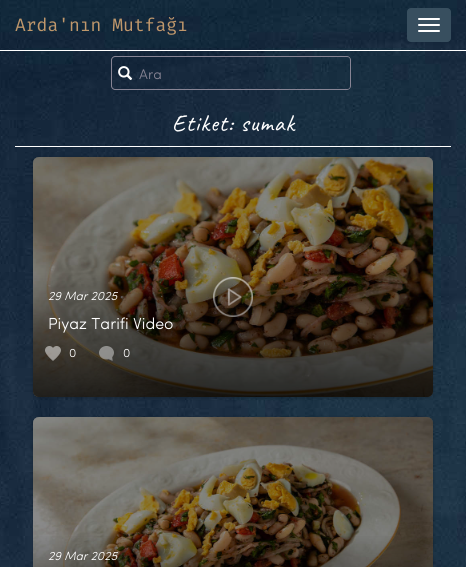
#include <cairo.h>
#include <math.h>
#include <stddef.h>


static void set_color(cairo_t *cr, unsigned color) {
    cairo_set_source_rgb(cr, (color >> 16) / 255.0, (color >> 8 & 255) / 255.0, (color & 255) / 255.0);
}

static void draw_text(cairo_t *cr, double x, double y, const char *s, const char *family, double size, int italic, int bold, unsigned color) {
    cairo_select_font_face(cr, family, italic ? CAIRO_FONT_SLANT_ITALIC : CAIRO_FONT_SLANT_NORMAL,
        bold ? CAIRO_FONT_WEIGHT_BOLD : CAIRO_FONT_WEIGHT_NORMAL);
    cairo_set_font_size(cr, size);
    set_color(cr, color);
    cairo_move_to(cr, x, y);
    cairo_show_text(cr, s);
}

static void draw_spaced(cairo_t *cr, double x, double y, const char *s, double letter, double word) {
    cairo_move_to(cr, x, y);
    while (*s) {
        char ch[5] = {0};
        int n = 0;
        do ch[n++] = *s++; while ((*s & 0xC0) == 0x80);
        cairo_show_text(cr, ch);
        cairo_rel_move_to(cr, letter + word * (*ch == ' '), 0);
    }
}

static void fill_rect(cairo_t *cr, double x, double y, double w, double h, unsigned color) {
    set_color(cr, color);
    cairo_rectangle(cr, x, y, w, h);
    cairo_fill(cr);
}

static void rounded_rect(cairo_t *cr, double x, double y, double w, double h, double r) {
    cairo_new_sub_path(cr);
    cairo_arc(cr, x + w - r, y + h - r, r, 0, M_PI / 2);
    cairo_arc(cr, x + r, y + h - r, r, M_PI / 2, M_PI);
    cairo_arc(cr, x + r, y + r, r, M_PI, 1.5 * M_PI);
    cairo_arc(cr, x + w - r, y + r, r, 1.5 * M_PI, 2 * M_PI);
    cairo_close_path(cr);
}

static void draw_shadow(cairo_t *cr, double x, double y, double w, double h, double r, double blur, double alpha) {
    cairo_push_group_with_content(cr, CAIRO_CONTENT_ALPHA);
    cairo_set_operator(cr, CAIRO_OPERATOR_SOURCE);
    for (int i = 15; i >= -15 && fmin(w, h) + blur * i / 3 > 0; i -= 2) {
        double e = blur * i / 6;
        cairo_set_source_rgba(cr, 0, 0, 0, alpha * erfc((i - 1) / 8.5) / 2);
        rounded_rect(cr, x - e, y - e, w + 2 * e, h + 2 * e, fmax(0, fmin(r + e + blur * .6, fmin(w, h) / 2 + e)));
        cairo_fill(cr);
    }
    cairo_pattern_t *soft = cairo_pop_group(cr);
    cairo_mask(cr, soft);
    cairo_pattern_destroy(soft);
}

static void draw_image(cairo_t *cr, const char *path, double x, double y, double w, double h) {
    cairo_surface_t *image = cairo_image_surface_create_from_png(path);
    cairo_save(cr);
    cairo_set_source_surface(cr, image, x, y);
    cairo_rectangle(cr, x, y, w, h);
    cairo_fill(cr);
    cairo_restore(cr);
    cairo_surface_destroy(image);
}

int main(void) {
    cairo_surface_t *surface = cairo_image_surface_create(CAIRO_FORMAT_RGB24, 466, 567);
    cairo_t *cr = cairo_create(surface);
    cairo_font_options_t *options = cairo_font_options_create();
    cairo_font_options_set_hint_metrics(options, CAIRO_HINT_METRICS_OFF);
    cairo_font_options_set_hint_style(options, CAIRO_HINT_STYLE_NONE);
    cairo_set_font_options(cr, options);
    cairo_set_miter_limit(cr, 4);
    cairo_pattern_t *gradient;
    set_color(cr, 0xFFFFFF);
    cairo_paint(cr);
    draw_image(cr, "assets/img1.png", 0, 51, 466, 516);
    draw_image(cr, "assets/img2.png", 0, 0, 466, 50);
    draw_text(cr, 15, 31, "Arda'nın Mutfağı", "Fira Mono", 18, 0, 0, 0xBF976B);
    set_color(cr, 0x384F5F);
    rounded_rect(cr, 407.5, 8.5, 43, 33, 3.5);
    cairo_fill_preserve(cr);
    cairo_set_line_width(cr, 1);
    cairo_stroke(cr);
    set_color(cr, 0xFFFFFF);
    rounded_rect(cr, 418, 18, 22, 2, 1);
    cairo_fill(cr);
    rounded_rect(cr, 418, 24, 22, 2, 1);
    cairo_fill(cr);
    rounded_rect(cr, 418, 30, 22, 2, 1);
    cairo_fill(cr);
    set_color(cr, 0x878494);
    cairo_set_fill_rule(cr, CAIRO_FILL_RULE_EVEN_ODD);
    cairo_new_path(cr);
    cairo_move_to(cr, 115, 56);
    cairo_line_to(cr, 138, 56);
    cairo_line_to(cr, 138, 90);
    cairo_line_to(cr, 115, 90);
    cairo_curve_to(cr, 113, 90, 111, 88, 111, 86);
    cairo_line_to(cr, 111, 60);
    cairo_curve_to(cr, 111, 58, 113, 56, 115, 56);
    cairo_close_path(cr);
    cairo_move_to(cr, 115, 57);
    cairo_line_to(cr, 138, 57);
    cairo_line_to(cr, 138, 89);
    cairo_line_to(cr, 115, 89);
    cairo_curve_to(cr, 113.5, 89, 112, 87.5, 112, 86);
    cairo_line_to(cr, 112, 60);
    cairo_curve_to(cr, 112, 58.5, 113.5, 57, 115, 57);
    cairo_close_path(cr);
    cairo_fill(cr);
    draw_image(cr, "assets/img3.png", 118, 66, 15, 14);
    cairo_new_path(cr);
    cairo_move_to(cr, 138, 56);
    cairo_line_to(cr, 347, 56);
    cairo_curve_to(cr, 349, 56, 351, 58, 351, 60);
    cairo_line_to(cr, 351, 86);
    cairo_curve_to(cr, 351, 88, 349, 90, 347, 90);
    cairo_line_to(cr, 138, 90);
    cairo_close_path(cr);
    cairo_move_to(cr, 138, 57);
    cairo_line_to(cr, 347, 57);
    cairo_curve_to(cr, 349, 57, 350, 58, 350, 60);
    cairo_line_to(cr, 350, 86);
    cairo_curve_to(cr, 350, 88, 349, 89, 347, 89);
    cairo_line_to(cr, 138, 89);
    cairo_close_path(cr);
    cairo_fill(cr);
    draw_text(cr, 139, 79, "Ara", "Sofia", 14, 0, 0, 0x878494);
    fill_rect(cr, 15, 146, 436, 1, 0xFFFFFF);
    cairo_select_font_face(cr, "Caveat", CAIRO_FONT_SLANT_NORMAL, CAIRO_FONT_WEIGHT_NORMAL);
    cairo_set_font_size(cr, 24);
    draw_spaced(cr, 172, 131, "Etiket: sumak", 1, 0);
    set_color(cr, 0x000000);
    draw_shadow(cr, 33, 158, 400, 240, 6, 2, 0.23);
    draw_image(cr, "assets/img4.png", 33, 157, 400, 240);
    cairo_set_source_rgba(cr, 0, 0, 0, 0.46);
    rounded_rect(cr, 33, 157, 400, 240, 6);
    cairo_fill(cr);
    draw_image(cr, "assets/img5.png", 213, 277, 40, 40);
    gradient = cairo_pattern_create_linear(233, 272, 233, 397);
    cairo_pattern_add_color_stop_rgba(gradient, 0, 0, 0, 0, 0);
    cairo_pattern_add_color_stop_rgba(gradient, 1, 0, 0, 0, 0.65);
    cairo_set_source(cr, gradient);
    cairo_pattern_destroy(gradient);
    cairo_new_path(cr);
    cairo_move_to(cr, 33, 272);
    cairo_line_to(cr, 433, 272);
    cairo_line_to(cr, 433, 391);
    cairo_curve_to(cr, 433, 394.5, 430.5, 397, 427, 397);
    cairo_line_to(cr, 39, 397);
    cairo_curve_to(cr, 35.5, 397, 33, 394.5, 33, 391);
    cairo_close_path(cr);
    cairo_fill(cr);
    draw_text(cr, 48, 300, "29 Mar 2025", "Sofia", 12, 1, 0, 0xFFFFFF);
    draw_text(cr, 48, 329, "Piyaz Tarifi Video", "Sofia", 16, 0, 0, 0xFFFFFF);
    draw_image(cr, "assets/img6.png", 45, 346, 16, 15);
    draw_text(cr, 69, 357, "0", "Sofia", 12, 0, 0, 0xFFFFFF);
    draw_image(cr, "assets/img7.png", 99, 346, 15, 15);
    draw_text(cr, 123, 357, "0", "Sofia", 12, 0, 0, 0xFFFFFF);
    set_color(cr, 0x000000);
    draw_shadow(cr, 33, 418, 400, 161, 6, 2, 0.23);
    draw_image(cr, "assets/img8.png", 33, 417, 400, 150);
    cairo_set_source_rgba(cr, 0, 0, 0, 0.46);
    rounded_rect(cr, 33, 417, 400, 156, 6);
    cairo_fill(cr);
    gradient = cairo_pattern_create_linear(233, 532, 233, 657);
    cairo_pattern_add_color_stop_rgba(gradient, 0, 0, 0, 0, 0);
    cairo_pattern_add_color_stop_rgba(gradient, 1, 0, 0, 0, 0.65);
    cairo_set_source(cr, gradient);
    cairo_pattern_destroy(gradient);
    cairo_rectangle(cr, 33, 536, 400, 31);
    cairo_fill(cr);
    draw_text(cr, 48, 560, "29 Mar 2025", "Sofia", 12, 1, 0, 0xFFFFFF);
    cairo_surface_write_to_png(surface, "output.png");
    cairo_font_options_destroy(options);
    cairo_destroy(cr);
    cairo_surface_destroy(surface);
    return 0;
}
